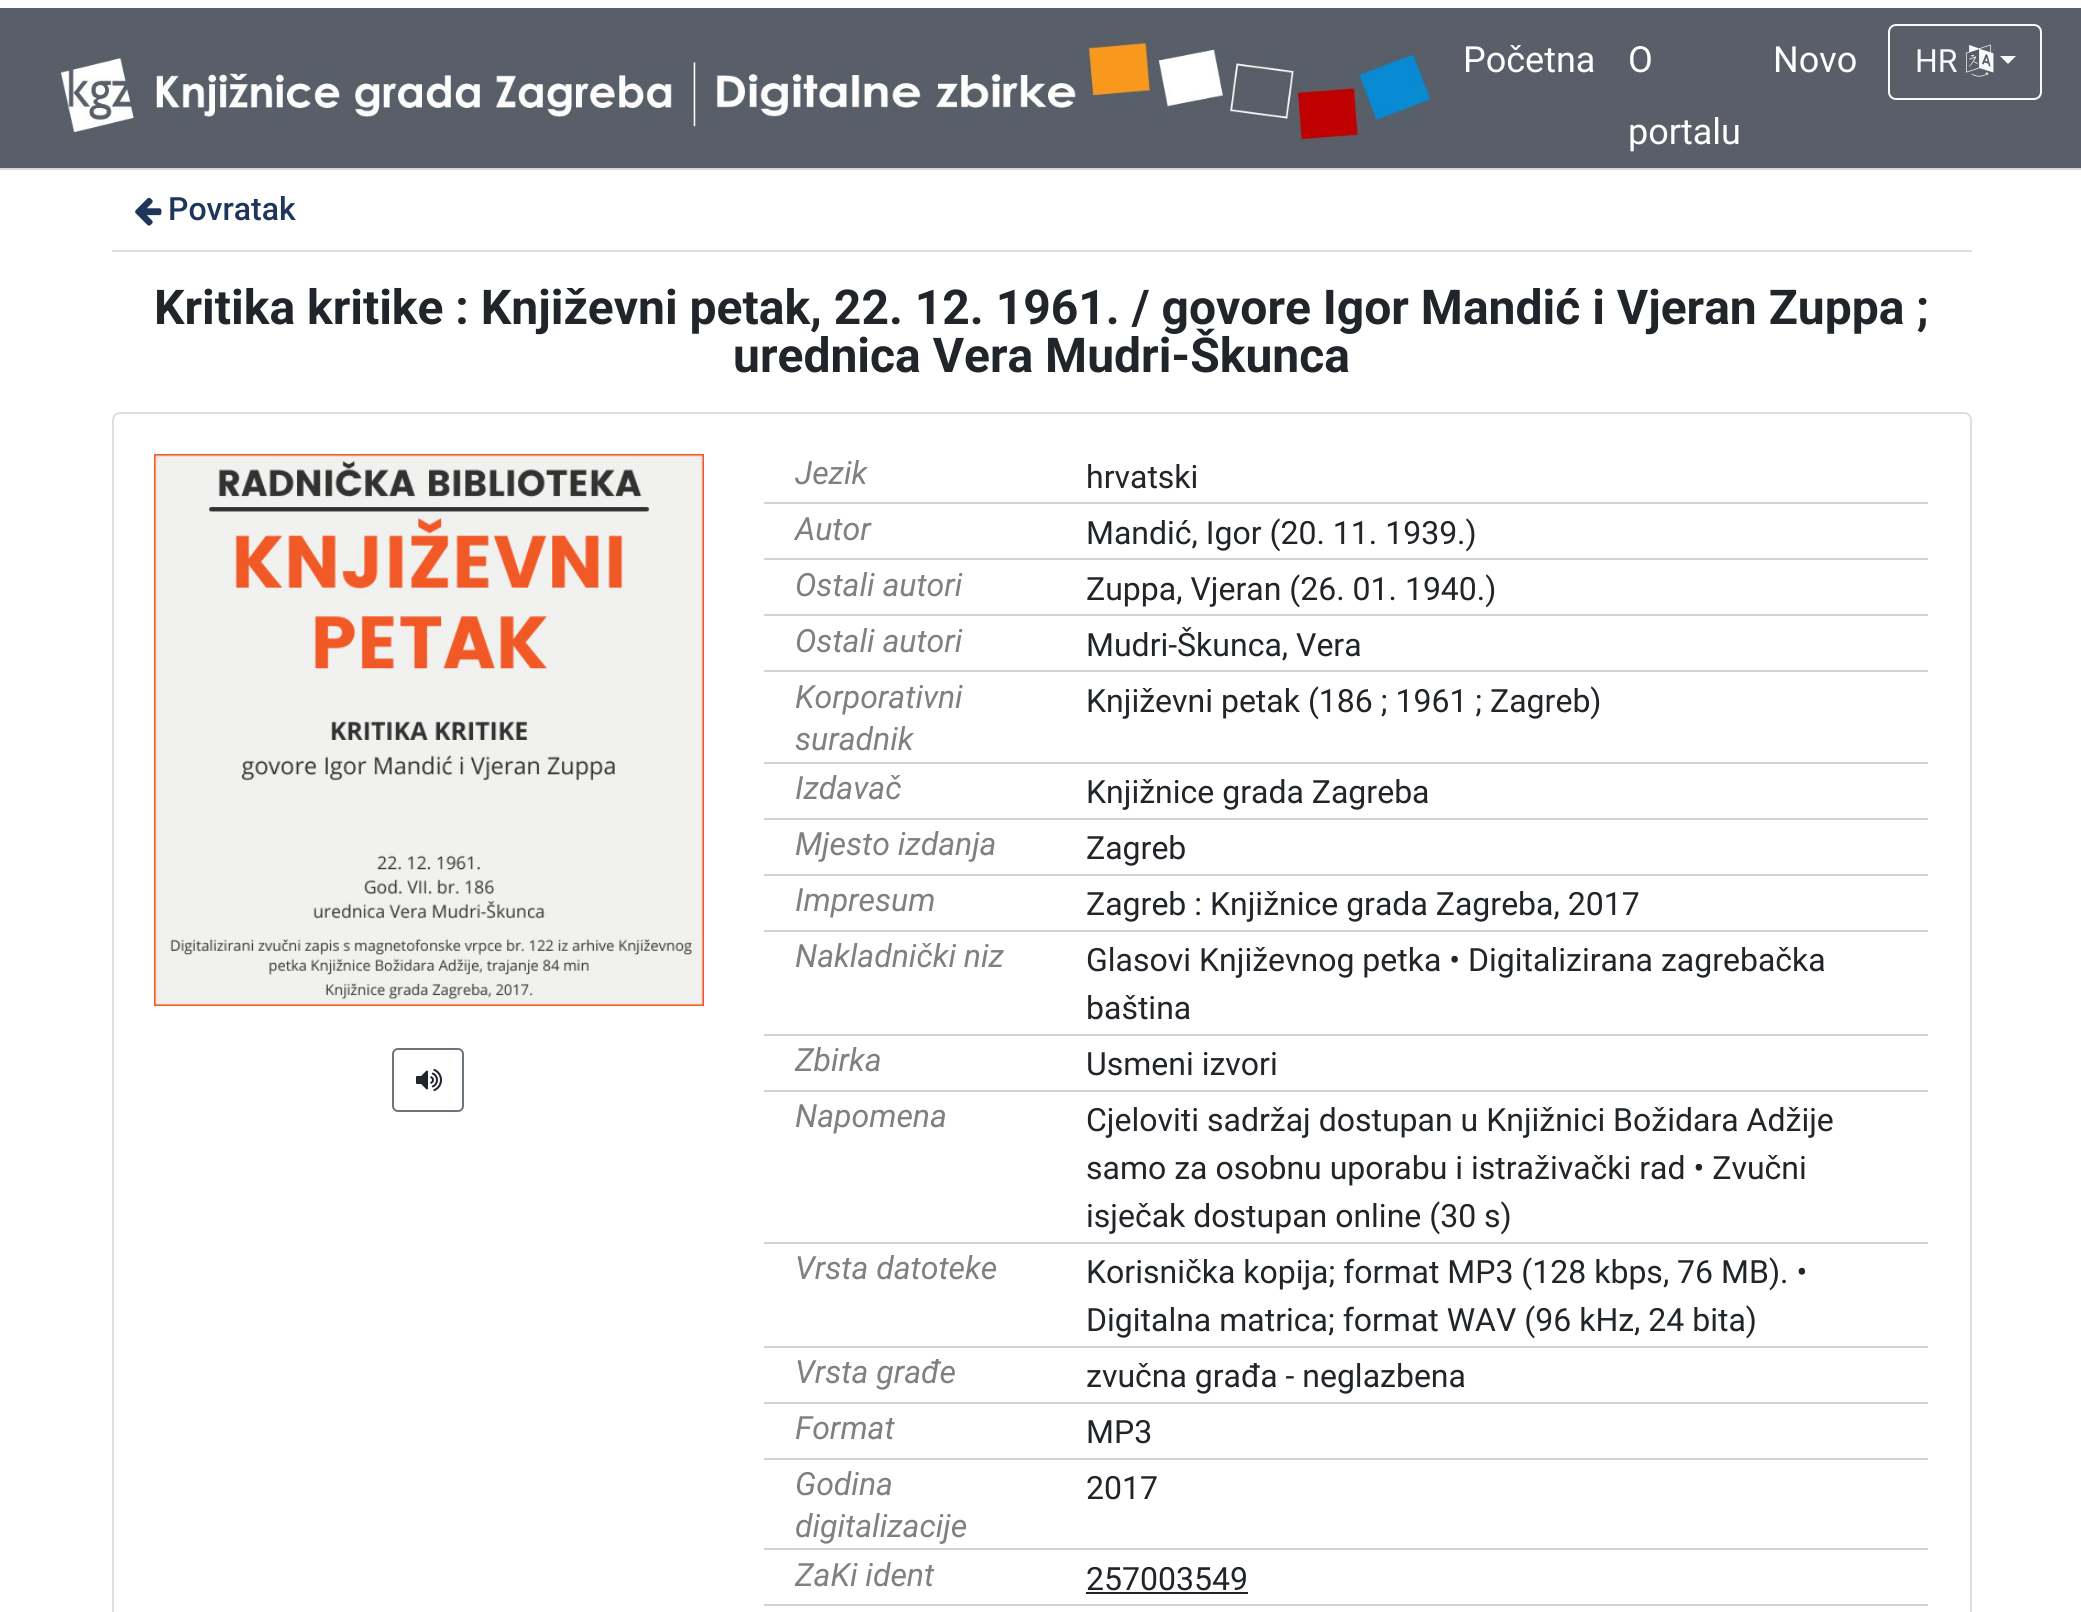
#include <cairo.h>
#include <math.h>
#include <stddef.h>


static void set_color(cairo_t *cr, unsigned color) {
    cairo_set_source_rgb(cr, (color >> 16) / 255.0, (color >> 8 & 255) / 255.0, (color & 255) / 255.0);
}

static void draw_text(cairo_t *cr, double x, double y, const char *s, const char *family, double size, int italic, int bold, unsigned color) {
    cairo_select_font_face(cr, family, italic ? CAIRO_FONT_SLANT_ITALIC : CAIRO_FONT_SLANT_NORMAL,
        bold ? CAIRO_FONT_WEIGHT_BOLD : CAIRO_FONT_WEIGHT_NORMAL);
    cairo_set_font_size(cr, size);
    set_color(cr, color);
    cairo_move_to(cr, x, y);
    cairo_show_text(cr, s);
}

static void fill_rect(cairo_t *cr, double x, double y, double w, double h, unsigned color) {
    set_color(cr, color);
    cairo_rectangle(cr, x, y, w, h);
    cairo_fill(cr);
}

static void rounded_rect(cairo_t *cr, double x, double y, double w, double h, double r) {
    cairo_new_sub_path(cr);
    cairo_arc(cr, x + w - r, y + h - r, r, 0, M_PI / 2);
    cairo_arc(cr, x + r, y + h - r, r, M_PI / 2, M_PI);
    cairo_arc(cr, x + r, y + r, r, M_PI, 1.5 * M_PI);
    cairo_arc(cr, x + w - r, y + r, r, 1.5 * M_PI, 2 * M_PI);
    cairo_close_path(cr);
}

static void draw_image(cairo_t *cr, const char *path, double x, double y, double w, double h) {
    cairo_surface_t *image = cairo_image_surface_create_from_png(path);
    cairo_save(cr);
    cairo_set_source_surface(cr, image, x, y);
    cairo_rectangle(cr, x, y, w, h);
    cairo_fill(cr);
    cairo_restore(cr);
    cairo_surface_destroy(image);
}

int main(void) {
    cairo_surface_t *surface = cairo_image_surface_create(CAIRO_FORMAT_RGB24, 2081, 1612);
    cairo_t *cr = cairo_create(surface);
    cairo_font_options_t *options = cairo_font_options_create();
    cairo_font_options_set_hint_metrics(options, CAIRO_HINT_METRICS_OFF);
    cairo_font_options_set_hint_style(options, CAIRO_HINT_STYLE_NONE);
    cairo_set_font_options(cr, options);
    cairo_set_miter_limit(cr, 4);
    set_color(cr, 0xFFFFFF);
    cairo_paint(cr);
    fill_rect(cr, 0, 8, 2081, 160, 0x5A5E69);
    fill_rect(cr, 0, 0, 2081, 8, 0xFDFCFD);
    fill_rect(cr, 0, 168, 2081, 2, 0xDADADA);
    draw_image(cr, "assets/img1.png", 58, 36, 1379, 106);
    draw_text(cr, 1463, 72, "Početna", "Roboto", 36, 0, 0, 0xFFFFFF);
    draw_text(cr, 1628, 72, "O", "Roboto", 36, 0, 0, 0xFFFFFF);
    draw_text(cr, 1628, 144, "portalu", "Roboto", 36, 0, 0, 0xFFFFFF);
    draw_text(cr, 1773, 72, "Novo", "Roboto", 36, 0, 0, 0xFFFFFF);
    rounded_rect(cr, 1889, 25, 152, 74, 7);
    set_color(cr, 0xF8F9FA);
    cairo_stroke(cr);
    draw_text(cr, 1915, 72, "HR", "Roboto", 32, 0, 0, 0xF8F9FA);
    draw_image(cr, "assets/img2.png", 1966, 44, 28, 33);
    cairo_new_path(cr);
    cairo_move_to(cr, 2000, 56);
    cairo_line_to(cr, 2016, 56);
    cairo_line_to(cr, 2008, 64);
    cairo_close_path(cr);
    cairo_fill(cr);
    fill_rect(cr, 112, 250, 1860, 2, 0xDFDFDF);
    draw_image(cr, "assets/img3.png", 135, 197, 27, 29);
    draw_text(cr, 168, 220, "Povratak", "Roboto Medium", 32, 0, 0, 0x1F365C);
    draw_text(cr, 154, 324, "Kritika kritike : Književni petak, 22. 12. 1961. / govore Igor Mandić i Vjeran Zuppa ;", "Roboto", 48, 0, 1, 0x212529);
    draw_text(cr, 733, 372, "urednica Vera Mudri-Škunca", "Roboto", 48, 0, 1, 0x212529);
    rounded_rect(cr, 113, 413, 1858, 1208, 7);
    set_color(cr, 0xDFDFDF);
    cairo_stroke(cr);
    draw_image(cr, "assets/img4.png", 154, 454, 550, 552);
    rounded_rect(cr, 393, 1049, 70, 62, 5);
    set_color(cr, 0x6C757D);
    cairo_stroke(cr);
    draw_image(cr, "assets/img5.png", 416, 1068, 26, 24);
    fill_rect(cr, 764, 502, 1164, 2, 0xD3D3D3);
    draw_text(cr, 795, 484, "Jezik", "Roboto", 32, 1, 0, 0x808080);
    draw_text(cr, 1086, 488, "hrvatski", "Roboto", 32, 0, 0, 0x212529);
    fill_rect(cr, 764, 558, 1164, 2, 0xD3D3D3);
    draw_text(cr, 795, 540, "Autor", "Roboto", 32, 1, 0, 0x808080);
    draw_text(cr, 1086, 544, "Mandić, Igor (20. 11. 1939.)", "Roboto", 32, 0, 0, 0x212529);
    fill_rect(cr, 764, 614, 1164, 2, 0xD3D3D3);
    draw_text(cr, 795, 596, "Ostali autori", "Roboto", 32, 1, 0, 0x808080);
    draw_text(cr, 1086, 600, "Zuppa, Vjeran (26. 01. 1940.)", "Roboto", 32, 0, 0, 0x212529);
    fill_rect(cr, 764, 670, 1164, 2, 0xD3D3D3);
    draw_text(cr, 795, 652, "Ostali autori", "Roboto", 32, 1, 0, 0x808080);
    draw_text(cr, 1086, 656, "Mudri-Škunca, Vera", "Roboto", 32, 0, 0, 0x212529);
    fill_rect(cr, 764, 762, 1164, 2, 0xD3D3D3);
    draw_text(cr, 795, 708, "Korporativni", "Roboto", 32, 1, 0, 0x808080);
    draw_text(cr, 795, 750, "suradnik", "Roboto", 32, 1, 0, 0x808080);
    draw_text(cr, 1086, 712, "Književni petak (186 ; 1961 ; Zagreb)", "Roboto", 32, 0, 0, 0x212529);
    fill_rect(cr, 764, 818, 1164, 2, 0xD3D3D3);
    draw_text(cr, 795, 799, "Izdavač", "Roboto", 32, 1, 0, 0x808080);
    draw_text(cr, 1086, 803, "Knjižnice grada Zagreba", "Roboto", 32, 0, 0, 0x212529);
    fill_rect(cr, 764, 874, 1164, 2, 0xD3D3D3);
    draw_text(cr, 795, 855, "Mjesto izdanja", "Roboto", 32, 1, 0, 0x808080);
    draw_text(cr, 1086, 859, "Zagreb", "Roboto", 32, 0, 0, 0x212529);
    fill_rect(cr, 764, 930, 1164, 2, 0xD3D3D3);
    draw_text(cr, 795, 911, "Impresum", "Roboto", 32, 1, 0, 0x808080);
    draw_text(cr, 1086, 915, "Zagreb : Knjižnice grada Zagreba, 2017", "Roboto", 32, 0, 0, 0x212529);
    fill_rect(cr, 764, 1034, 1164, 2, 0xD3D3D3);
    draw_text(cr, 795, 967, "Nakladnički niz", "Roboto", 32, 1, 0, 0x808080);
    draw_text(cr, 1086, 971, "Glasovi Književnog petka • Digitalizirana zagrebačka", "Roboto", 32, 0, 0, 0x212529);
    draw_text(cr, 1086, 1019, "baština", "Roboto", 32, 0, 0, 0x212529);
    fill_rect(cr, 764, 1090, 1164, 2, 0xD3D3D3);
    draw_text(cr, 795, 1071, "Zbirka", "Roboto", 32, 1, 0, 0x808080);
    draw_text(cr, 1086, 1075, "Usmeni izvori", "Roboto", 32, 0, 0, 0x212529);
    fill_rect(cr, 764, 1242, 1164, 2, 0xD3D3D3);
    draw_text(cr, 795, 1127, "Napomena", "Roboto", 32, 1, 0, 0x808080);
    draw_text(cr, 1086, 1131, "Cjeloviti sadržaj dostupan u Knjižnici Božidara Adžije", "Roboto", 32, 0, 0, 0x212529);
    draw_text(cr, 1086, 1179, "samo za osobnu uporabu i istraživački rad • Zvučni", "Roboto", 32, 0, 0, 0x212529);
    draw_text(cr, 1086, 1227, "isječak dostupan online (30 s)", "Roboto", 32, 0, 0, 0x212529);
    fill_rect(cr, 764, 1346, 1164, 2, 0xD3D3D3);
    draw_text(cr, 795, 1279, "Vrsta datoteke", "Roboto", 32, 1, 0, 0x808080);
    draw_text(cr, 1086, 1283, "Korisnička kopija; format MP3 (128 kbps, 76 MB). •", "Roboto", 32, 0, 0, 0x212529);
    draw_text(cr, 1086, 1331, "Digitalna matrica; format WAV (96 kHz, 24 bita)", "Roboto", 32, 0, 0, 0x212529);
    fill_rect(cr, 764, 1402, 1164, 2, 0xD3D3D3);
    draw_text(cr, 795, 1383, "Vrsta građe", "Roboto", 32, 1, 0, 0x808080);
    draw_text(cr, 1086, 1387, "zvučna građa - neglazbena", "Roboto", 32, 0, 0, 0x212529);
    fill_rect(cr, 764, 1458, 1164, 2, 0xD3D3D3);
    draw_text(cr, 795, 1439, "Format", "Roboto", 32, 1, 0, 0x808080);
    draw_text(cr, 1086, 1443, "MP3", "Roboto", 32, 0, 0, 0x212529);
    fill_rect(cr, 764, 1548, 1164, 2, 0xD3D3D3);
    draw_text(cr, 795, 1495, "Godina", "Roboto", 32, 1, 0, 0x808080);
    draw_text(cr, 795, 1537, "digitalizacije", "Roboto", 32, 1, 0, 0x808080);
    draw_text(cr, 1086, 1499, "2017", "Roboto", 32, 0, 0, 0x212529);
    fill_rect(cr, 764, 1604, 1164, 2, 0xD3D3D3);
    draw_text(cr, 795, 1586, "ZaKi ident", "Roboto", 32, 1, 0, 0x808080);
    draw_text(cr, 1086, 1590, "257003549", "Roboto", 32, 0, 0, 0x212529);
    fill_rect(cr, 1086, 1592, 162, 2, 0x212529);
    cairo_surface_write_to_png(surface, "output.png");
    cairo_font_options_destroy(options);
    cairo_destroy(cr);
    cairo_surface_destroy(surface);
    return 0;
}
